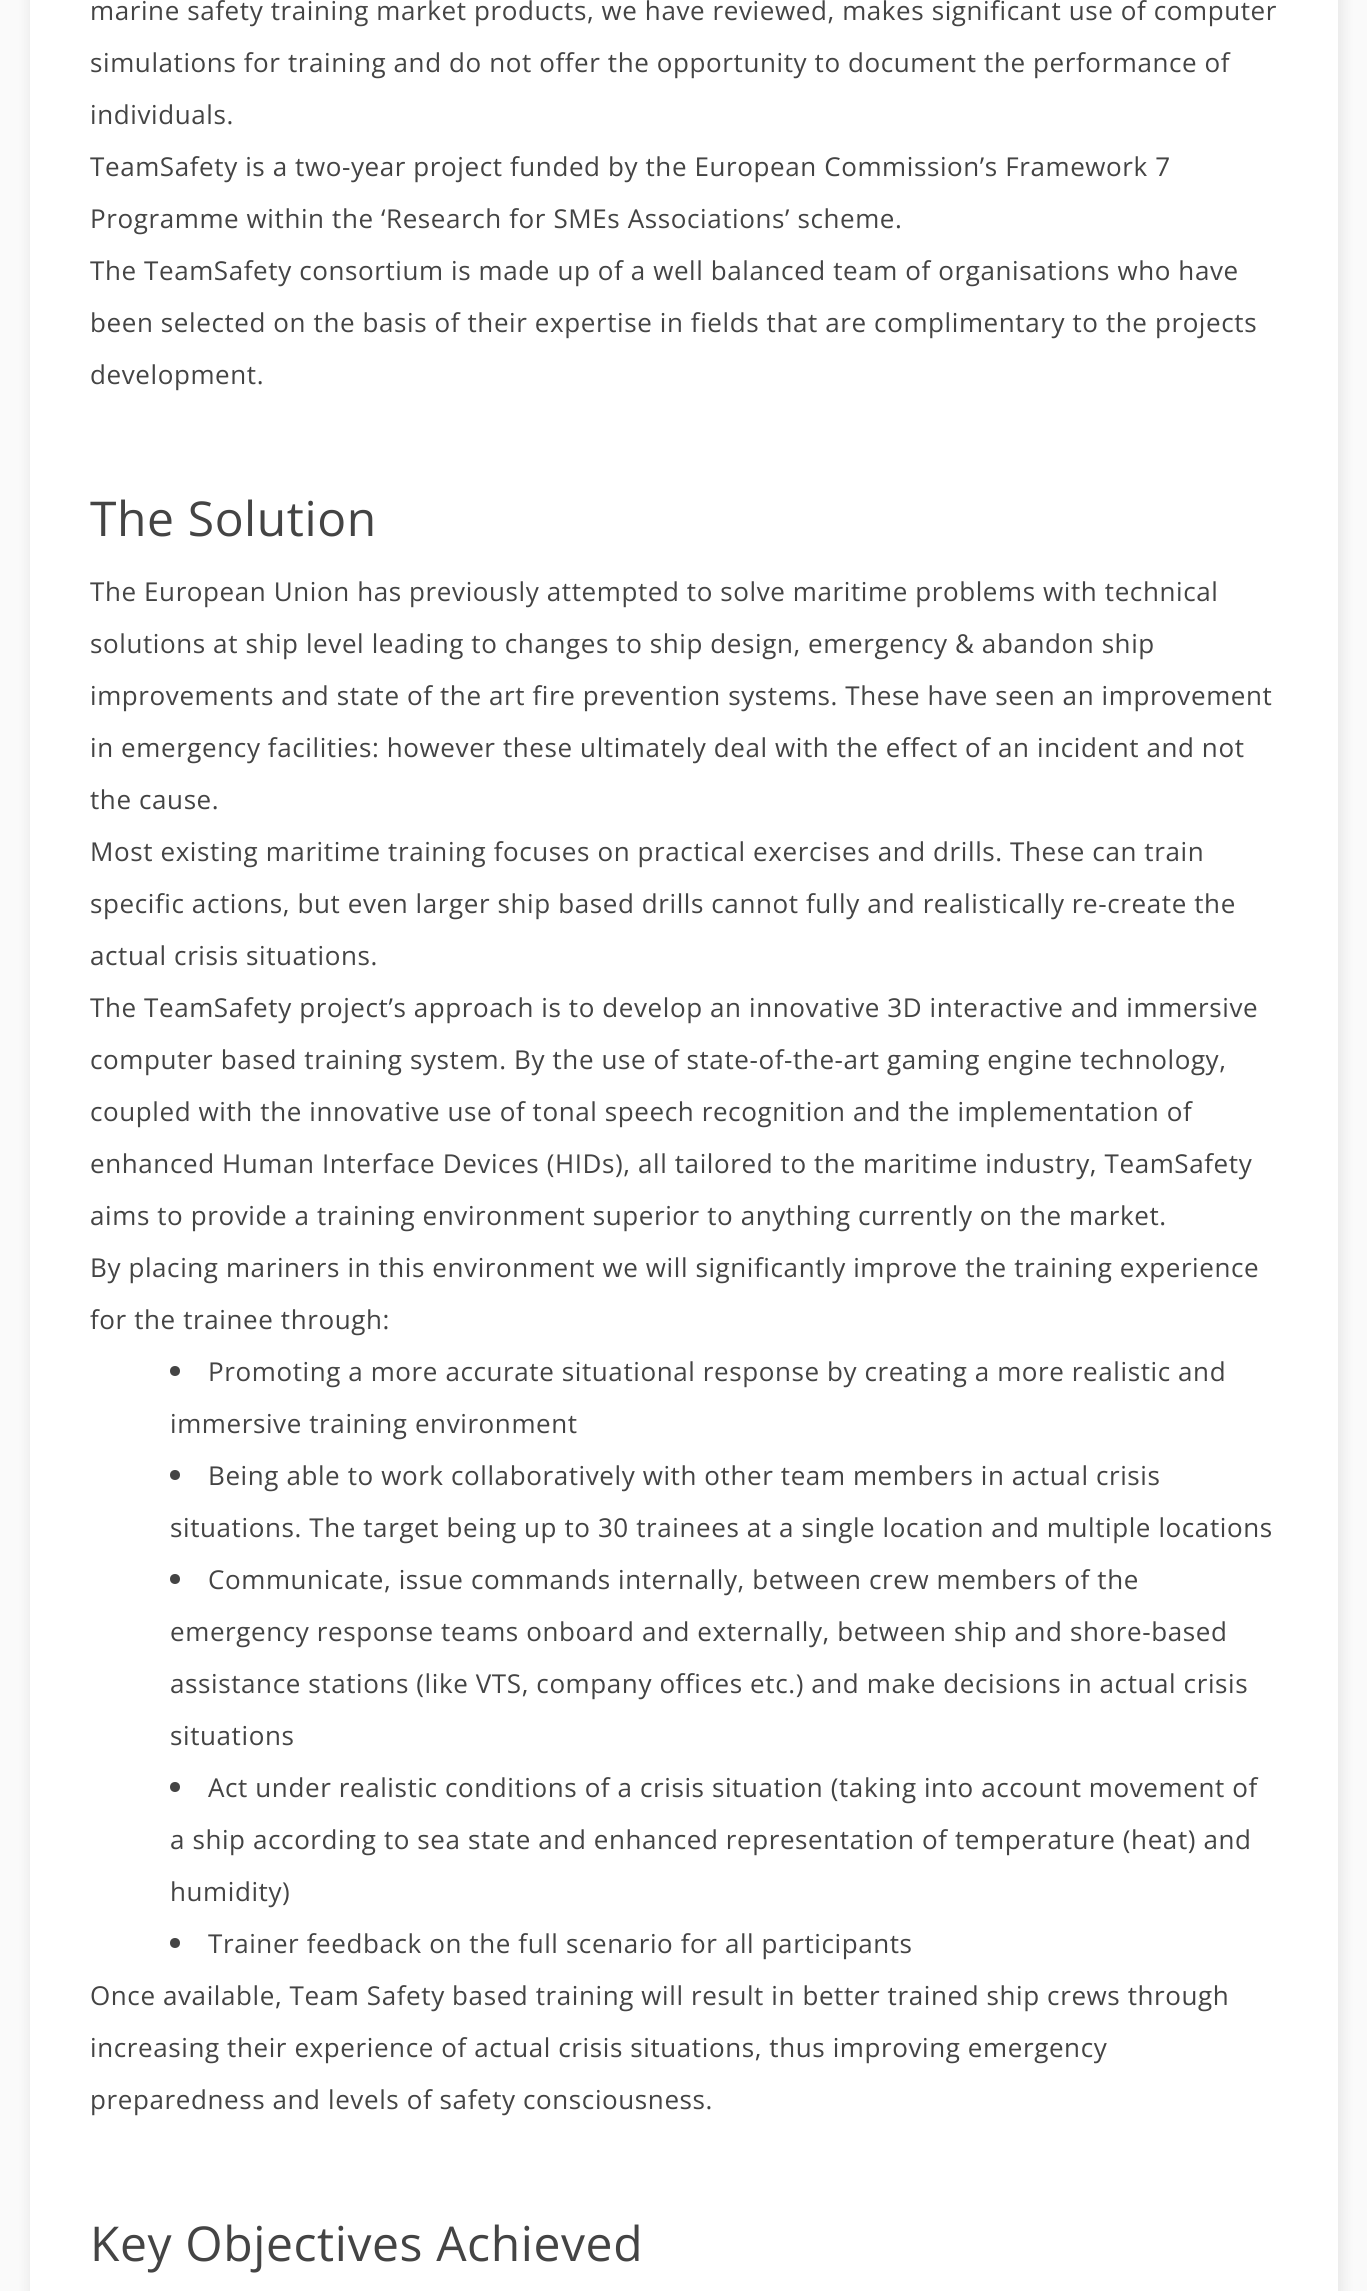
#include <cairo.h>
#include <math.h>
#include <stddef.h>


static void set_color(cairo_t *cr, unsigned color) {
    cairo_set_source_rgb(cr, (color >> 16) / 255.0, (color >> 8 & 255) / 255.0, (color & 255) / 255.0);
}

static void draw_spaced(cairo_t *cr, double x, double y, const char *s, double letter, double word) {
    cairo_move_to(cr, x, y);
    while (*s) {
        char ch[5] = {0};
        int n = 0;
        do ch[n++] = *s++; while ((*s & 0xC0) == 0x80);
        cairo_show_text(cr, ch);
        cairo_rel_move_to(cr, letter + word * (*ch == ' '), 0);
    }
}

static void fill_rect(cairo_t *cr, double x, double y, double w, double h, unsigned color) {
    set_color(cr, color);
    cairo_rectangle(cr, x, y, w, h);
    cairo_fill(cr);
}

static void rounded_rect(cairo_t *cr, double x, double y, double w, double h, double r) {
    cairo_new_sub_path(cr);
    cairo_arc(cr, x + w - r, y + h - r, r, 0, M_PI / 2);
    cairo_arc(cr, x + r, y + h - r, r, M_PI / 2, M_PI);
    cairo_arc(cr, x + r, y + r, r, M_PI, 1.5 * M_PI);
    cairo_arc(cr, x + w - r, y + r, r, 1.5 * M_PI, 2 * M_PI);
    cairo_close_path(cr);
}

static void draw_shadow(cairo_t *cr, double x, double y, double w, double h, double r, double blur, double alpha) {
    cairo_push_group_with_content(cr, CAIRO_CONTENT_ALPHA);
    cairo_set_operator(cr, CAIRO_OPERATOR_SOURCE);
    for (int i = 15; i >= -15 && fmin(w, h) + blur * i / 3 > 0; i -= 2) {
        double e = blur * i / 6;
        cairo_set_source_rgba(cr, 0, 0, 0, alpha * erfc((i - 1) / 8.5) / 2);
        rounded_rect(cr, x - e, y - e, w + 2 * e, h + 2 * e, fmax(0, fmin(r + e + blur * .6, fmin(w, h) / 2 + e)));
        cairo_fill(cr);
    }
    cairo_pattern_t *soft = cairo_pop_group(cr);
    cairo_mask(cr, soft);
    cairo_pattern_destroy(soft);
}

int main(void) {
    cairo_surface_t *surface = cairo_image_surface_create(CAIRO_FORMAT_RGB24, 1367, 2291);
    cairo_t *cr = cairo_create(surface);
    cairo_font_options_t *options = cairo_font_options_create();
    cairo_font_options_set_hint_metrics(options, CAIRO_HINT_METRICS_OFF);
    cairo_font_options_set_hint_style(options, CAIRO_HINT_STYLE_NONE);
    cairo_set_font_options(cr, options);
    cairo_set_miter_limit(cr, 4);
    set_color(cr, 0xFAFAFA);
    cairo_paint(cr);
    set_color(cr, 0x000000);
    draw_shadow(cr, 30, -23, 1312, 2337, 0, 7.5, 0.08);
    fill_rect(cr, 30, 0, 1308, 2291, 0xFFFFFF);
    cairo_select_font_face(cr, "Open Sans", CAIRO_FONT_SLANT_NORMAL, CAIRO_FONT_WEIGHT_NORMAL);
    cairo_set_font_size(cr, 26);
    set_color(cr, 0x444444);
    draw_spaced(cr, 90, 20, "marine safety training market products, we have reviewed, makes significant use of computer", 0.6, 0);
    draw_spaced(cr, 90, 72, "simulations for training and do not offer the opportunity to document the performance of", 0.6, 0);
    draw_spaced(cr, 90, 124, "individuals.", 0.6, 0);
    draw_spaced(cr, 90, 176, "TeamSafety is a two-year project funded by the European Commission’s Framework 7", 0.6, 0);
    draw_spaced(cr, 90, 228, "Programme within the ‘Research for SMEs Associations’ scheme.", 0.6, 0);
    draw_spaced(cr, 90, 280, "The TeamSafety consortium is made up of a well balanced team of organisations who have", 0.6, 0);
    draw_spaced(cr, 90, 332, "been selected on the basis of their expertise in fields that are complimentary to the projects", 0.6, 0);
    draw_spaced(cr, 90, 384, "development.", 0.6, 0);
    cairo_set_font_size(cr, 48);
    draw_spaced(cr, 90, 536, "The Solution", 0.6, 0);
    cairo_set_font_size(cr, 26);
    draw_spaced(cr, 90, 601, "The European Union has previously attempted to solve maritime problems with technical", 0.6, 0);
    draw_spaced(cr, 90, 653, "solutions at ship level leading to changes to ship design, emergency & abandon ship", 0.6, 0);
    draw_spaced(cr, 90, 705, "improvements and state of the art fire prevention systems. These have seen an improvement", 0.6, 0);
    draw_spaced(cr, 90, 757, "in emergency facilities: however these ultimately deal with the effect of an incident and not", 0.6, 0);
    draw_spaced(cr, 90, 809, "the cause.", 0.6, 0);
    draw_spaced(cr, 90, 861, "Most existing maritime training focuses on practical exercises and drills. These can train", 0.6, 0);
    draw_spaced(cr, 90, 913, "specific actions, but even larger ship based drills cannot fully and realistically re-create the", 0.6, 0);
    draw_spaced(cr, 90, 965, "actual crisis situations.", 0.6, 0);
    draw_spaced(cr, 90, 1017, "The TeamSafety project’s approach is to develop an innovative 3D interactive and immersive", 0.6, 0);
    draw_spaced(cr, 90, 1069, "computer based training system. By the use of state-of-the-art gaming engine technology,", 0.6, 0);
    draw_spaced(cr, 90, 1121, "coupled with the innovative use of tonal speech recognition and the implementation of", 0.6, 0);
    draw_spaced(cr, 90, 1173, "enhanced Human Interface Devices (HIDs), all tailored to the maritime industry, TeamSafety", 0.6, 0);
    draw_spaced(cr, 90, 1225, "aims to provide a training environment superior to anything currently on the market.", 0.6, 0);
    draw_spaced(cr, 90, 1277, "By placing mariners in this environment we will significantly improve the training experience", 0.6, 0);
    draw_spaced(cr, 90, 1329, "for the trainee through:", 0.6, 0);
    cairo_new_path(cr);
    cairo_arc(cr, 175, 1371, 5, 0, 2 * M_PI);
    cairo_fill(cr);
    draw_spaced(cr, 208, 1381, "Promoting a more accurate situational response by creating a more realistic and", 0.6, 0);
    draw_spaced(cr, 170, 1433, "immersive training environment", 0.6, 0);
    cairo_new_path(cr);
    cairo_arc(cr, 175, 1475, 5, 0, 2 * M_PI);
    cairo_fill(cr);
    draw_spaced(cr, 208, 1485, "Being able to work collaboratively with other team members in actual crisis", 0.6, 0);
    draw_spaced(cr, 170, 1537, "situations. The target being up to 30 trainees at a single location and multiple locations", 0.6, 0);
    cairo_new_path(cr);
    cairo_arc(cr, 175, 1579, 5, 0, 2 * M_PI);
    cairo_fill(cr);
    draw_spaced(cr, 208, 1589, "Communicate, issue commands internally, between crew members of the", 0.6, 0);
    draw_spaced(cr, 170, 1641, "emergency response teams onboard and externally, between ship and shore-based", 0.6, 0);
    draw_spaced(cr, 170, 1693, "assistance stations (like VTS, company offices etc.) and make decisions in actual crisis", 0.6, 0);
    draw_spaced(cr, 170, 1745, "situations", 0.6, 0);
    cairo_new_path(cr);
    cairo_arc(cr, 175, 1787, 5, 0, 2 * M_PI);
    cairo_fill(cr);
    draw_spaced(cr, 208, 1797, "Act under realistic conditions of a crisis situation (taking into account movement of", 0.6, 0);
    draw_spaced(cr, 170, 1849, "a ship according to sea state and enhanced representation of temperature (heat) and", 0.6, 0);
    draw_spaced(cr, 170, 1901, "humidity)", 0.6, 0);
    cairo_new_path(cr);
    cairo_arc(cr, 175, 1943, 5, 0, 2 * M_PI);
    cairo_fill(cr);
    draw_spaced(cr, 208, 1953, "Trainer feedback on the full scenario for all participants", 0.6, 0);
    draw_spaced(cr, 90, 2005, "Once available, Team Safety based training will result in better trained ship crews through", 0.6, 0);
    draw_spaced(cr, 90, 2057, "increasing their experience of actual crisis situations, thus improving emergency", 0.6, 0);
    draw_spaced(cr, 90, 2109, "preparedness and levels of safety consciousness.", 0.6, 0);
    cairo_set_font_size(cr, 48);
    draw_spaced(cr, 90, 2261, "Key Objectives Achieved", 0.6, 0);
    cairo_surface_write_to_png(surface, "output.png");
    cairo_font_options_destroy(options);
    cairo_destroy(cr);
    cairo_surface_destroy(surface);
    return 0;
}
